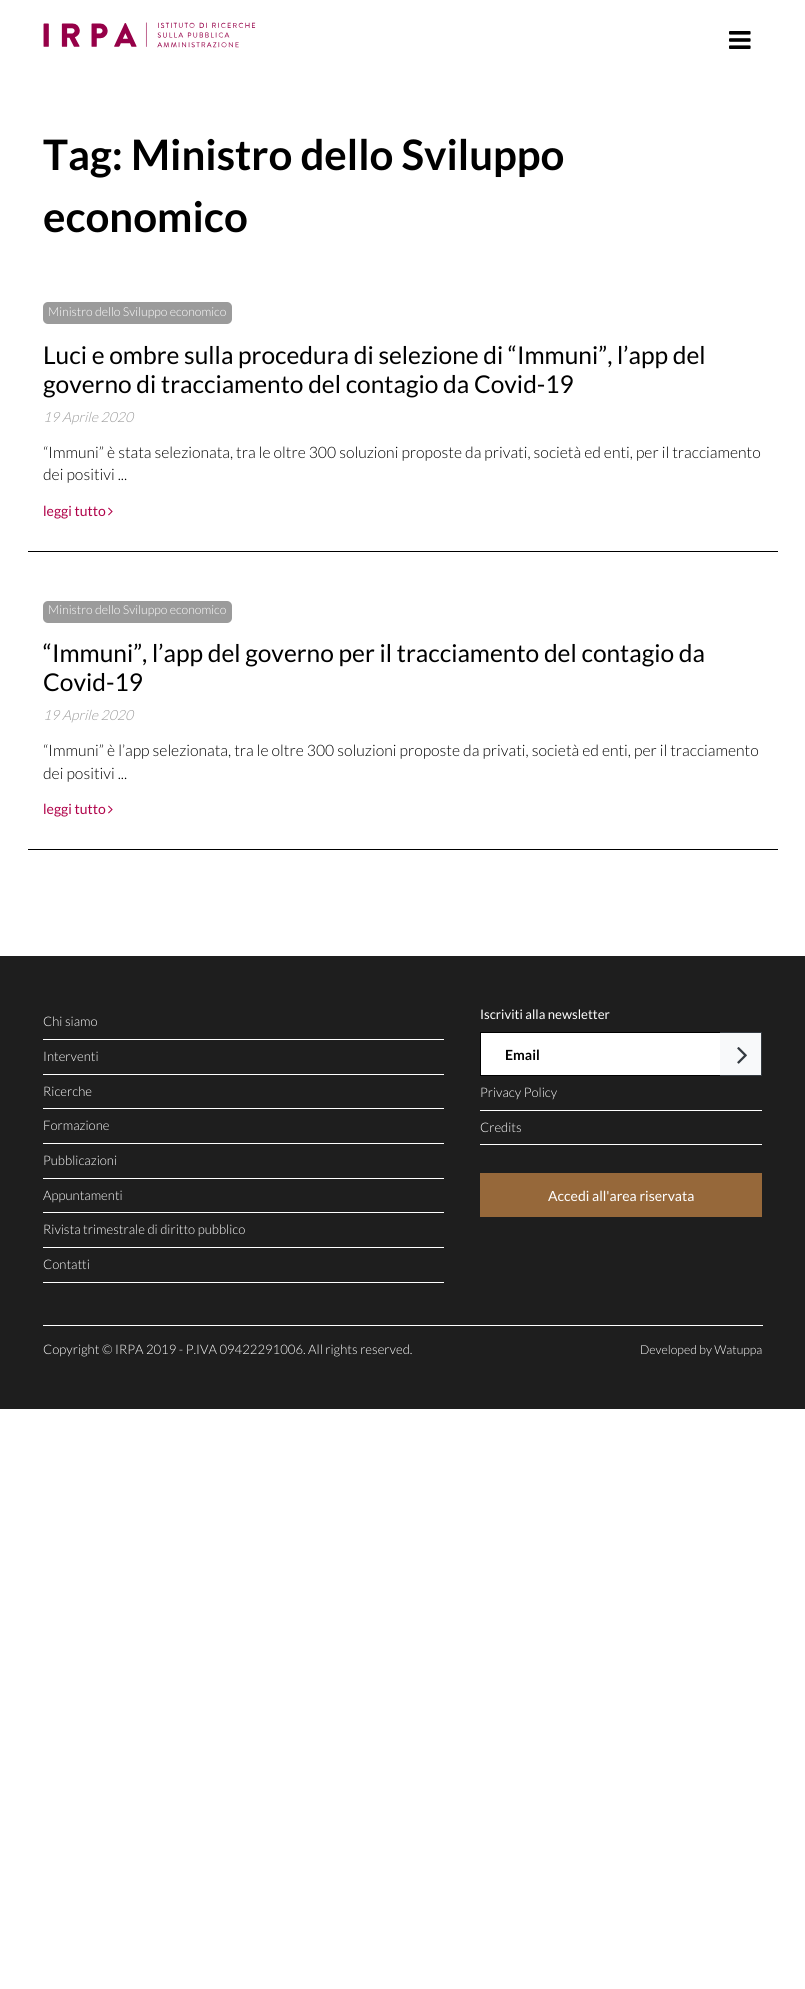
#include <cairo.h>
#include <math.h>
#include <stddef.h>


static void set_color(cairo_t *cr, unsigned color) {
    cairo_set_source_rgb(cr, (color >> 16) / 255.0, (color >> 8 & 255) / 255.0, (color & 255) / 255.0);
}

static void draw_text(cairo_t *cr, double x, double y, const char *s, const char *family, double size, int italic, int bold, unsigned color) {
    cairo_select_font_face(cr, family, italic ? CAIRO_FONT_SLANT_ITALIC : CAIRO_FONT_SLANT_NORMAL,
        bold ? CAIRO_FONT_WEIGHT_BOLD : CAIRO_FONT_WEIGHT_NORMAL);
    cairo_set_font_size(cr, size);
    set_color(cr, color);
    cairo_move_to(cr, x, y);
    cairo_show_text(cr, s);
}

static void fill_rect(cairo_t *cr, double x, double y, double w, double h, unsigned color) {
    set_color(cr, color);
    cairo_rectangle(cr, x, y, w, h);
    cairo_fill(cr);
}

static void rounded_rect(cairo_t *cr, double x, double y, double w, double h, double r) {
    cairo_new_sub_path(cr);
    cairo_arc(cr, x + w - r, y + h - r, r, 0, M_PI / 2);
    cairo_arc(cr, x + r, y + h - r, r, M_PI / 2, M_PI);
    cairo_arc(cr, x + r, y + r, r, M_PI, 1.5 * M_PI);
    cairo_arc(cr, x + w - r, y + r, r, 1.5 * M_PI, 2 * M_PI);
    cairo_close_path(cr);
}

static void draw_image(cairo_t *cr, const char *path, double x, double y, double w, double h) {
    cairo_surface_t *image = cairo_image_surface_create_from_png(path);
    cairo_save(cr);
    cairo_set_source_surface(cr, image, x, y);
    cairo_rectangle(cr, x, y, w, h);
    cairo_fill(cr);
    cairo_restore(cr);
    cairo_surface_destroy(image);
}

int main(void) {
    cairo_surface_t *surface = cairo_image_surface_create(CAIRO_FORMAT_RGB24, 805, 1989);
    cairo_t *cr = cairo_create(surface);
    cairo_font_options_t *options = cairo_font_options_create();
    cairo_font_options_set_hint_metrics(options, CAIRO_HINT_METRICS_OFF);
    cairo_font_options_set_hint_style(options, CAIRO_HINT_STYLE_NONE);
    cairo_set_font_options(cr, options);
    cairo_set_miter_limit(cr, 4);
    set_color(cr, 0xFFFFFF);
    cairo_paint(cr);
    draw_image(cr, "assets/img1.png", 43, 22, 213, 26);
    draw_image(cr, "assets/img2.png", 729, 31, 22, 18);
    draw_text(cr, 43, 170, "Tag: Ministro dello Sviluppo", "Lato", 42, 0, 1, 0x000000);
    draw_text(cr, 43, 232, "economico", "Lato", 42, 0, 1, 0x000000);
    fill_rect(cr, 28, 551, 750, 1, 0x000000);
    set_color(cr, 0x9B9B9B);
    rounded_rect(cr, 43, 302, 189, 22, 5);
    cairo_fill(cr);
    draw_text(cr, 48, 316, "Ministro dello Sviluppo economico", "Lato Light", 12.25, 0, 0, 0xFFFFFF);
    draw_text(cr, 43, 364, "Luci e ombre sulla procedura di selezione di “Immuni”, l’app del", "Lato", 24.5, 0, 0, 0x000000);
    draw_text(cr, 43, 393, "governo di tracciamento del contagio da Covid-19", "Lato", 24.5, 0, 0, 0x000000);
    draw_text(cr, 43, 422, "19 Aprile 2020", "Lato Light", 14, 1, 0, 0x9B9B9B);
    draw_text(cr, 43, 458, "“Immuni” è stata selezionata, tra le oltre 300 soluzioni proposte da privati, società ed enti, per il tracciamento", "Lato Light", 15.75, 0, 0, 0x000000);
    draw_text(cr, 43, 480, "dei positivi ...", "Lato Light", 15.75, 0, 0, 0x000000);
    draw_text(cr, 43, 516, "leggi tutto", "Lato", 14, 0, 0, 0xB00249);
    draw_image(cr, "assets/img3.png", 108, 507, 5, 9);
    fill_rect(cr, 28, 849, 750, 1, 0x000000);
    set_color(cr, 0x9B9B9B);
    rounded_rect(cr, 43, 601, 189, 22, 5);
    cairo_fill(cr);
    draw_text(cr, 48, 614, "Ministro dello Sviluppo economico", "Lato Light", 12.25, 0, 0, 0xFFFFFF);
    draw_text(cr, 43, 662, "“Immuni”, l’app del governo per il tracciamento del contagio da", "Lato", 24.5, 0, 0, 0x000000);
    draw_text(cr, 43, 691, "Covid-19", "Lato", 24.5, 0, 0, 0x000000);
    draw_text(cr, 43, 720, "19 Aprile 2020", "Lato Light", 14, 1, 0, 0x9B9B9B);
    draw_text(cr, 43, 756, "“Immuni” è l’app selezionata, tra le oltre 300 soluzioni proposte da privati, società ed enti, per il tracciamento", "Lato Light", 15.75, 0, 0, 0x000000);
    draw_text(cr, 43, 779, "dei positivi ...", "Lato Light", 15.75, 0, 0, 0x000000);
    draw_text(cr, 43, 814, "leggi tutto", "Lato", 14, 0, 0, 0xB00249);
    draw_image(cr, "assets/img3.png", 108, 805, 5, 9);
    fill_rect(cr, 0, 956, 805, 453, 0x1E1E1E);
    fill_rect(cr, 43, 1039, 401, 1, 0xFFFFFF);
    draw_text(cr, 43, 1026, "Chi siamo", "Lato Light", 13.1, 0, 0, 0xFFFFFF);
    fill_rect(cr, 43, 1074, 401, 1, 0xFFFFFF);
    draw_text(cr, 43, 1061, "Interventi", "Lato Light", 13.1, 0, 0, 0xFFFFFF);
    fill_rect(cr, 43, 1108, 401, 1, 0xFFFFFF);
    draw_text(cr, 43, 1096, "Ricerche", "Lato Light", 13.1, 0, 0, 0xFFFFFF);
    fill_rect(cr, 43, 1143, 401, 1, 0xFFFFFF);
    draw_text(cr, 43, 1130, "Formazione", "Lato Light", 13.1, 0, 0, 0xFFFFFF);
    fill_rect(cr, 43, 1178, 401, 1, 0xFFFFFF);
    draw_text(cr, 43, 1165, "Pubblicazioni", "Lato Light", 13.1, 0, 0, 0xFFFFFF);
    fill_rect(cr, 43, 1212, 401, 1, 0xFFFFFF);
    draw_text(cr, 43, 1200, "Appuntamenti", "Lato Light", 13.1, 0, 0, 0xFFFFFF);
    fill_rect(cr, 43, 1247, 401, 1, 0xFFFFFF);
    draw_text(cr, 43, 1234, "Rivista trimestrale di diritto pubblico", "Lato Light", 13.1, 0, 0, 0xFFFFFF);
    fill_rect(cr, 43, 1282, 401, 1, 0xFFFFFF);
    draw_text(cr, 43, 1269, "Contatti", "Lato Light", 13.1, 0, 0, 0xFFFFFF);
    draw_text(cr, 480, 1019, "Iscriviti alla newsletter", "Lato", 13.1, 0, 0, 0xFFFFFF);
    cairo_rectangle(cr, 480.5, 1032.5, 240, 43);
    cairo_fill_preserve(cr);
    set_color(cr, 0x000000);
    cairo_set_line_width(cr, 1);
    cairo_stroke(cr);
    draw_text(cr, 505, 1060, "Email", "Lato", 14, 0, 1, 0x000000);
    fill_rect(cr, 720, 1033, 41, 42, 0xF8F9FA);
    fill_rect(cr, 720, 1032, 42, 1, 0x343A40);
    fill_rect(cr, 761, 1032, 1, 44, 0x343A40);
    fill_rect(cr, 720, 1075, 42, 1, 0x343A40);
    draw_image(cr, "assets/img4.png", 737, 1047, 10, 17);
    fill_rect(cr, 480, 1110, 282, 1, 0xFFFFFF);
    draw_text(cr, 480, 1097, "Privacy Policy", "Lato Light", 13.1, 0, 0, 0xFFFFFF);
    fill_rect(cr, 480, 1144, 282, 1, 0xFFFFFF);
    draw_text(cr, 480, 1132, "Credits", "Lato Light", 13.1, 0, 0, 0xFFFFFF);
    fill_rect(cr, 480, 1173, 282, 44, 0x96683A);
    draw_text(cr, 548, 1201, "Accedi all'area riservata", "Lato", 14, 0, 0, 0xFFFFFF);
    fill_rect(cr, 43, 1325, 720, 1, 0xFFFFFF);
    draw_text(cr, 43, 1354, "Copyright © IRPA 2019 - P.IVA 09422291006. All rights reserved.", "Lato Light", 13.1, 0, 0, 0xFFFFFF);
    draw_text(cr, 640, 1354, "Developed by Watuppa", "Lato Light", 12.25, 0, 0, 0xFFFFFF);
    cairo_surface_write_to_png(surface, "output.png");
    cairo_font_options_destroy(options);
    cairo_destroy(cr);
    cairo_surface_destroy(surface);
    return 0;
}
